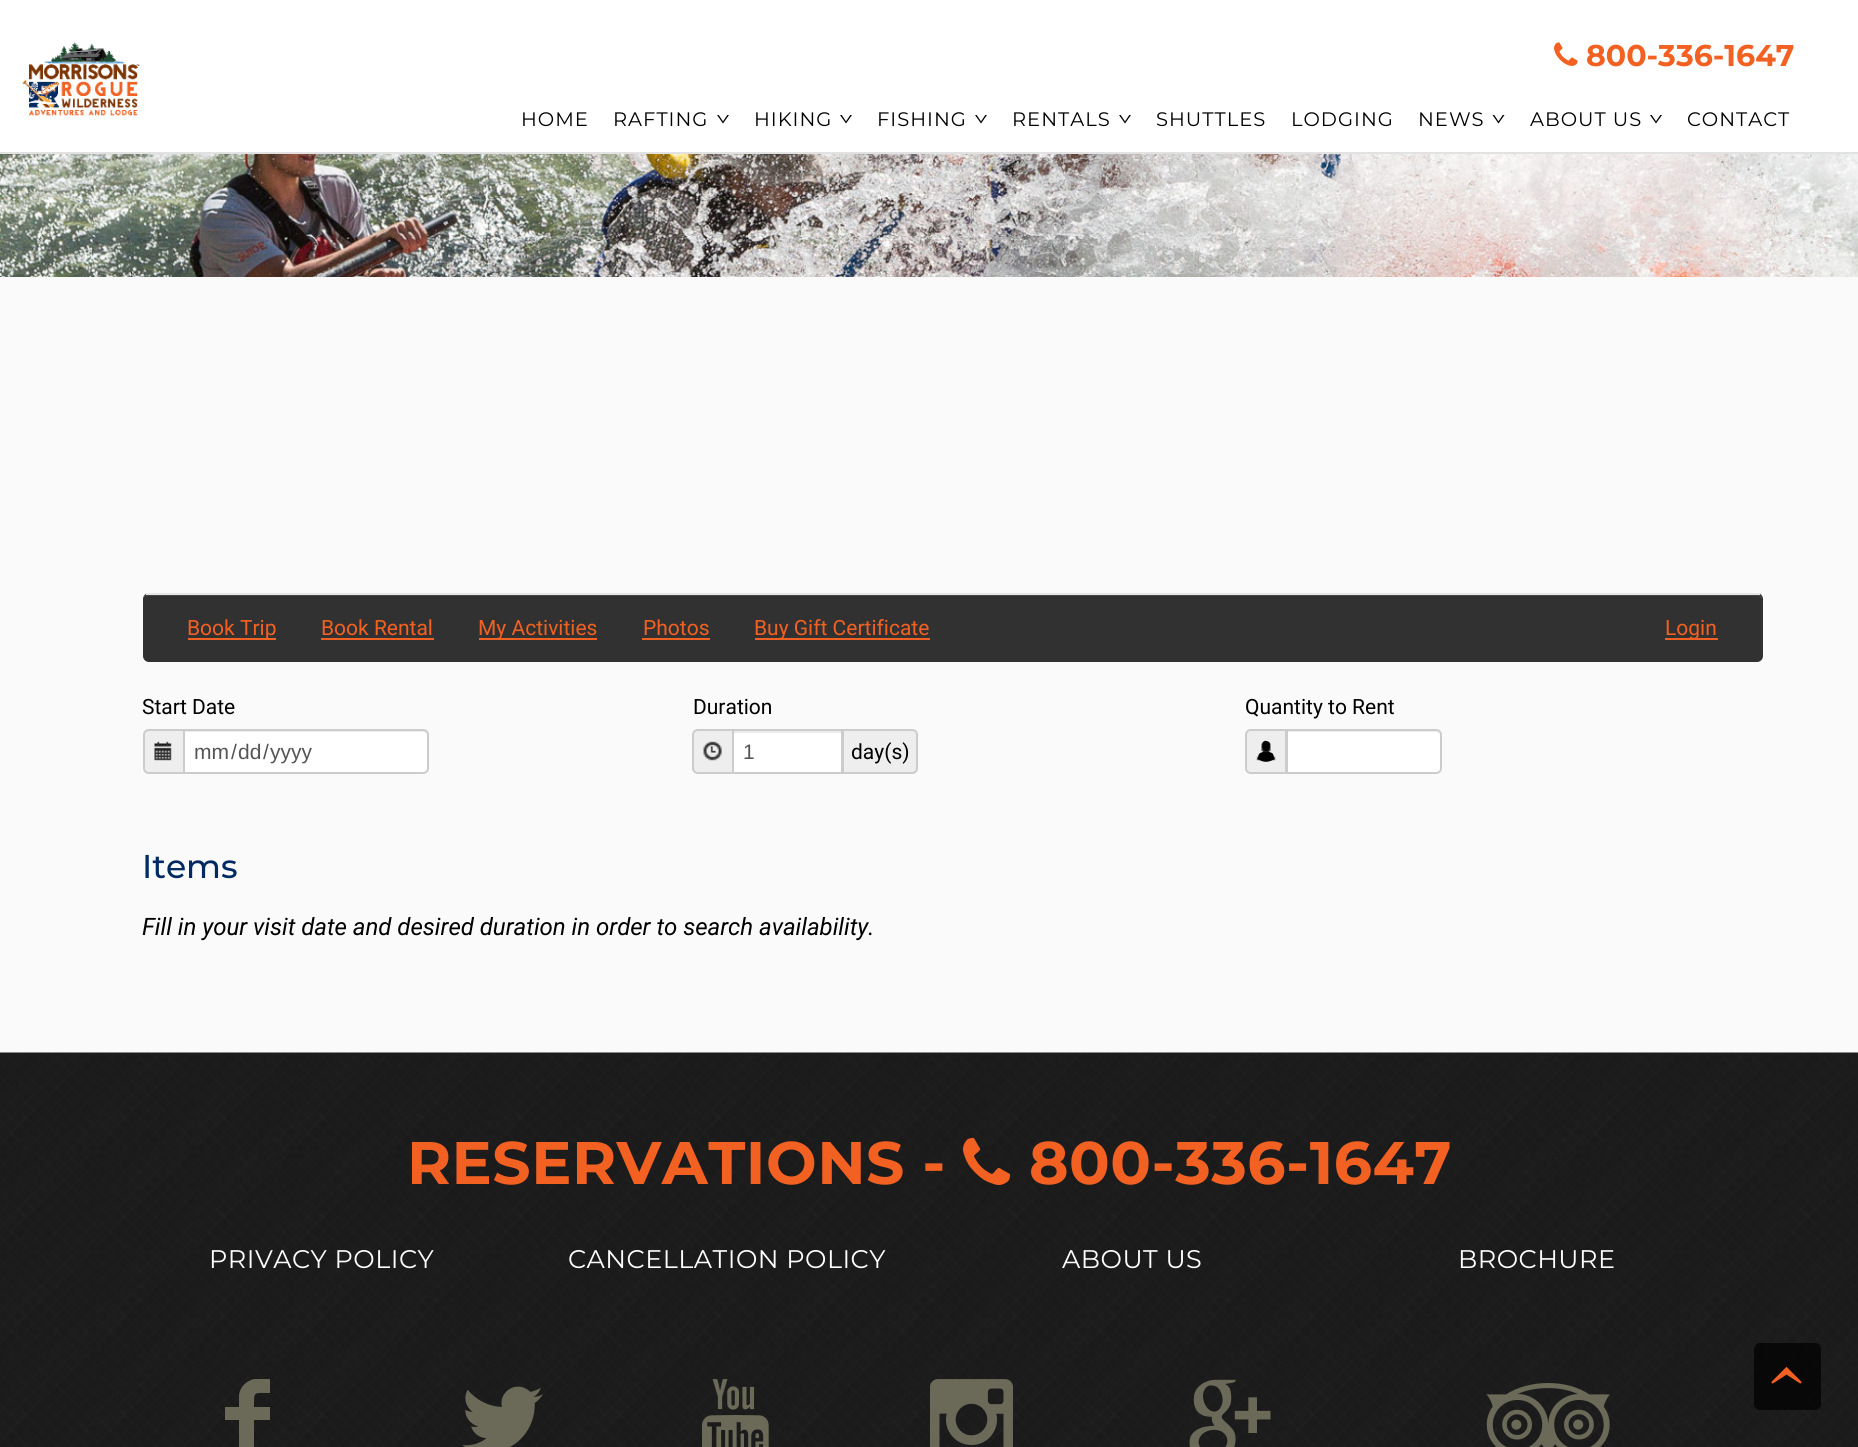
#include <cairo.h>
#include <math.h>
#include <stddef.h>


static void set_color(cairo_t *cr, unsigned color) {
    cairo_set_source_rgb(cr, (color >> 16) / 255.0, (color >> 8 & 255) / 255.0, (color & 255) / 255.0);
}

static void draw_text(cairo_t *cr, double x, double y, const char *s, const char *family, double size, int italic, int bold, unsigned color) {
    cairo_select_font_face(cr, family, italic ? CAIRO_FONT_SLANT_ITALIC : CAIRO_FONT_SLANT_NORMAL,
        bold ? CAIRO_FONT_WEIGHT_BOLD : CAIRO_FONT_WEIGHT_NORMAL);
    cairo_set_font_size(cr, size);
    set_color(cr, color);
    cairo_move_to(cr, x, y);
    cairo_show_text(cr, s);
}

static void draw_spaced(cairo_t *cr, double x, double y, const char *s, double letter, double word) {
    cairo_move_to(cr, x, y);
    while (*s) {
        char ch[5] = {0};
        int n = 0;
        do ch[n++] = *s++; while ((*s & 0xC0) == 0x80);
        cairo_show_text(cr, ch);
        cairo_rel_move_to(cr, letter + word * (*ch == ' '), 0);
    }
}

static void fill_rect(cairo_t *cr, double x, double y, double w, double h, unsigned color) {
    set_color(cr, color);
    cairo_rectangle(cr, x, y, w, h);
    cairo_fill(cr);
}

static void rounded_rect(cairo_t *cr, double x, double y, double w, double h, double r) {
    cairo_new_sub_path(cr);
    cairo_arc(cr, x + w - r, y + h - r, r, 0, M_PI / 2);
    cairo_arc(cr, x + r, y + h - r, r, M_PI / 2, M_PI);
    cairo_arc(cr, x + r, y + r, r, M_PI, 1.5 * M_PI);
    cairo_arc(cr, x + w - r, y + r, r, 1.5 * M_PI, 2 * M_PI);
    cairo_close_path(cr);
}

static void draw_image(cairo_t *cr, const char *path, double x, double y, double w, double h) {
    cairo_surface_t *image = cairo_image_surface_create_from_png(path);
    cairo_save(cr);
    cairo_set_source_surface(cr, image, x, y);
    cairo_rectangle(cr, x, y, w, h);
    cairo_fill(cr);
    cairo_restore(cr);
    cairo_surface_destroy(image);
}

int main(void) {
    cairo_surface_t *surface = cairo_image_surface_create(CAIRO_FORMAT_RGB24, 1858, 1447);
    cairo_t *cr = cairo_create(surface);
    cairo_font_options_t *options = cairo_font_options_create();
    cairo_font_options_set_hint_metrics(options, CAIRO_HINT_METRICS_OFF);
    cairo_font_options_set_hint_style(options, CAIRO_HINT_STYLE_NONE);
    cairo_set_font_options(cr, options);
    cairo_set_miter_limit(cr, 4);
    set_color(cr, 0xFAFAFA);
    cairo_paint(cr);
    fill_rect(cr, 0, 0, 1858, 152, 0xFFFFFF);
    fill_rect(cr, 0, 152, 1858, 2, 0xE2E2E2);
    draw_image(cr, "assets/img1.png", 22, 42, 118, 74);
    draw_image(cr, "assets/img2.png", 1554, 42, 24, 24);
    draw_text(cr, 1586, 66, "800-336-1647", "Montserrat", 30, 0, 1, 0xF26122);
    cairo_select_font_face(cr, "Montserrat", CAIRO_FONT_SLANT_NORMAL, CAIRO_FONT_WEIGHT_NORMAL);
    cairo_set_font_size(cr, 19.5);
    set_color(cr, 0x000000);
    draw_spaced(cr, 521, 126, "HOME", 1, 0);
    draw_spaced(cr, 613, 126, "RAFTING", 1, 0);
    draw_image(cr, "assets/img3.png", 717, 115, 12, 9);
    draw_spaced(cr, 754, 126, "HIKING", 1, 0);
    draw_image(cr, "assets/img3.png", 840, 115, 12, 9);
    draw_spaced(cr, 877, 126, "FISHING", 1, 0);
    draw_image(cr, "assets/img3.png", 975, 115, 12, 9);
    draw_spaced(cr, 1012, 126, "RENTALS", 1, 0);
    draw_image(cr, "assets/img3.png", 1119, 115, 12, 9);
    draw_spaced(cr, 1156, 126, "SHUTTLES", 1, 0);
    draw_spaced(cr, 1291, 126, "LODGING", 1, 0);
    draw_spaced(cr, 1418, 126, "NEWS", 1, 0);
    draw_image(cr, "assets/img4.png", 1492, 115, 13, 9);
    draw_spaced(cr, 1530, 126, "ABOUT US", 1, 0);
    draw_image(cr, "assets/img3.png", 1650, 115, 12, 9);
    draw_spaced(cr, 1687, 126, "CONTACT", 1, 0);
    draw_image(cr, "assets/img5.png", 0, 154, 1858, 123);
    set_color(cr, 0x313131);
    rounded_rect(cr, 143, 593, 1620, 69, 6);
    cairo_fill(cr);
    cairo_set_source_rgba(cr, 1, 1, 1, 0.1);
    cairo_new_path(cr);
    cairo_move_to(cr, 148, 596);
    cairo_line_to(cr, 1756, 596);
    cairo_curve_to(cr, 1760, 596, 1762, 598, 1762, 600);
    cairo_line_to(cr, 1762, 658);
    cairo_line_to(cr, 1762, 656);
    cairo_line_to(cr, 1762, 598);
    cairo_curve_to(cr, 1762, 596, 1760, 594, 1756, 594);
    cairo_line_to(cr, 148, 594);
    cairo_curve_to(cr, 145, 594, 142, 596, 142, 598);
    cairo_line_to(cr, 142, 599);
    cairo_curve_to(cr, 143, 597, 146, 596, 148, 596);
    cairo_close_path(cr);
    cairo_fill(cr);
    fill_rect(cr, 146, 593, 1614, 2, 0xE7E7E7);
    fill_rect(cr, 188, 638, 88, 2, 0xF26122);
    draw_text(cr, 187, 635, "Book Trip", "Roboto", 21, 0, 0, 0xF26122);
    draw_text(cr, 321, 635, "Book Rental", "Roboto", 21, 0, 0, 0xF26122);
    fill_rect(cr, 321, 638, 113, 2, 0xF26122);
    fill_rect(cr, 479, 638, 118, 2, 0xF26122);
    draw_text(cr, 478, 635, "My Activities", "Roboto", 21, 0, 0, 0xF26122);
    draw_text(cr, 643, 635, "Photos", "Roboto", 21, 0, 0, 0xF26122);
    fill_rect(cr, 642, 638, 68, 2, 0xF26122);
    fill_rect(cr, 755, 638, 175, 2, 0xF26122);
    draw_text(cr, 754, 635, "Buy Gift Certificate", "Roboto", 21, 0, 0, 0xF26122);
    fill_rect(cr, 1665, 638, 53, 2, 0xF26122);
    draw_text(cr, 1665, 635, "Login", "Roboto", 21, 0, 0, 0xF26122);
    draw_text(cr, 142, 714, "Start Date", "Roboto", 21, 0, 0, 0x000000);
    set_color(cr, 0xEEEEEE);
    cairo_new_path(cr);
    cairo_move_to(cr, 149, 730);
    cairo_line_to(cr, 184, 730);
    cairo_line_to(cr, 184, 773);
    cairo_line_to(cr, 149, 773);
    cairo_curve_to(cr, 146, 773, 144, 771, 144, 768);
    cairo_line_to(cr, 144, 735);
    cairo_curve_to(cr, 144, 732, 146, 730, 149, 730);
    cairo_close_path(cr);
    cairo_fill_preserve(cr);
    set_color(cr, 0xCCCCCC);
    cairo_stroke(cr);
    draw_image(cr, "assets/img6.png", 154, 741, 18, 20);
    set_color(cr, 0xFFFFFF);
    cairo_new_path(cr);
    cairo_move_to(cr, 183, 729);
    cairo_line_to(cr, 423, 729);
    cairo_curve_to(cr, 426.5, 729, 429, 731.5, 429, 735);
    cairo_line_to(cr, 429, 768);
    cairo_curve_to(cr, 429, 771.5, 426.5, 774, 423, 774);
    cairo_line_to(cr, 183, 774);
    cairo_close_path(cr);
    cairo_fill(cr);
    set_color(cr, 0xECECEC);
    cairo_new_path(cr);
    cairo_move_to(cr, 185, 731);
    cairo_line_to(cr, 185, 732);
    cairo_line_to(cr, 423, 732);
    cairo_curve_to(cr, 425, 732, 428, 734, 428, 736);
    cairo_curve_to(cr, 428, 733, 426, 731, 423, 731);
    cairo_close_path(cr);
    cairo_fill(cr);
    cairo_new_path(cr);
    cairo_move_to(cr, 184, 730);
    cairo_line_to(cr, 423, 730);
    cairo_curve_to(cr, 426, 730, 428, 732, 428, 735);
    cairo_line_to(cr, 428, 768);
    cairo_curve_to(cr, 428, 771, 426, 773, 423, 773);
    cairo_line_to(cr, 184, 773);
    cairo_close_path(cr);
    set_color(cr, 0xCCCCCC);
    cairo_stroke(cr);
    draw_text(cr, 194, 759, "mm", "Liberation Sans", 21, 0, 0, 0x555555);
    draw_text(cr, 231, 759, "/", "Liberation Sans", 21, 0, 0, 0x555555);
    draw_text(cr, 238, 759, "dd", "Liberation Sans", 21, 0, 0, 0x555555);
    draw_text(cr, 263, 759, "/", "Liberation Sans", 21, 0, 0, 0x555555);
    draw_text(cr, 270, 759, "yyyy", "Liberation Sans", 21, 0, 0, 0x555555);
    draw_text(cr, 693, 714, "Duration", "Roboto", 21, 0, 0, 0x000000);
    set_color(cr, 0xEEEEEE);
    cairo_new_path(cr);
    cairo_move_to(cr, 698, 730);
    cairo_line_to(cr, 733, 730);
    cairo_line_to(cr, 733, 773);
    cairo_line_to(cr, 698, 773);
    cairo_curve_to(cr, 695, 773, 693, 771, 693, 768);
    cairo_line_to(cr, 693, 735);
    cairo_curve_to(cr, 693, 732, 695, 730, 698, 730);
    cairo_close_path(cr);
    cairo_fill_preserve(cr);
    set_color(cr, 0xCCCCCC);
    cairo_stroke(cr);
    draw_image(cr, "assets/img7.png", 703, 741, 19, 20);
    fill_rect(cr, 734, 733, 107, 39, 0xFFFFFF);
    fill_rect(cr, 734, 731, 108, 2, 0xECECEC);
    set_color(cr, 0xEEEEEE);
    cairo_new_path(cr);
    cairo_move_to(cr, 843, 730);
    cairo_line_to(cr, 912, 730);
    cairo_curve_to(cr, 915, 730, 917, 732, 917, 735);
    cairo_line_to(cr, 917, 768);
    cairo_curve_to(cr, 917, 771, 915, 773, 912, 773);
    cairo_line_to(cr, 843, 773);
    cairo_close_path(cr);
    cairo_fill_preserve(cr);
    set_color(cr, 0xCCCCCC);
    cairo_stroke(cr);
    cairo_rectangle(cr, 733, 730, 109, 43);
    cairo_stroke(cr);
    draw_text(cr, 743, 759, "1", "Liberation Sans", 21, 0, 0, 0x555555);
    draw_text(cr, 851, 759, "day(s)", "Roboto", 21, 0, 0, 0x000000);
    draw_text(cr, 1245, 714, "Quantity to Rent", "Roboto", 21, 0, 0, 0x000000);
    set_color(cr, 0xEEEEEE);
    cairo_new_path(cr);
    cairo_move_to(cr, 1251, 730);
    cairo_line_to(cr, 1286, 730);
    cairo_line_to(cr, 1286, 773);
    cairo_line_to(cr, 1251, 773);
    cairo_curve_to(cr, 1248, 773, 1246, 771, 1246, 768);
    cairo_line_to(cr, 1246, 735);
    cairo_curve_to(cr, 1246, 732, 1248, 730, 1251, 730);
    cairo_close_path(cr);
    cairo_fill_preserve(cr);
    set_color(cr, 0xCCCCCC);
    cairo_stroke(cr);
    draw_image(cr, "assets/img8.png", 1256, 741, 20, 20);
    draw_image(cr, "assets/img9.png", 1257, 740, 18, 22);
    set_color(cr, 0xFFFFFF);
    cairo_new_path(cr);
    cairo_move_to(cr, 1286, 729);
    cairo_line_to(cr, 1436, 729);
    cairo_curve_to(cr, 1439.5, 729, 1442, 731.5, 1442, 735);
    cairo_line_to(cr, 1442, 768);
    cairo_curve_to(cr, 1442, 771.5, 1439.5, 774, 1436, 774);
    cairo_line_to(cr, 1286, 774);
    cairo_close_path(cr);
    cairo_fill(cr);
    set_color(cr, 0xECECEC);
    cairo_new_path(cr);
    cairo_move_to(cr, 1287, 732);
    cairo_line_to(cr, 1436, 732);
    cairo_curve_to(cr, 1438, 732, 1440, 734, 1440, 736);
    cairo_curve_to(cr, 1440, 733, 1438, 731, 1435, 731);
    cairo_line_to(cr, 1287, 731);
    cairo_close_path(cr);
    cairo_fill(cr);
    cairo_new_path(cr);
    cairo_move_to(cr, 1287, 730);
    cairo_line_to(cr, 1436, 730);
    cairo_curve_to(cr, 1439, 730, 1441, 732, 1441, 735);
    cairo_line_to(cr, 1441, 768);
    cairo_curve_to(cr, 1441, 771, 1439, 773, 1436, 773);
    cairo_line_to(cr, 1287, 773);
    cairo_close_path(cr);
    set_color(cr, 0xCCCCCC);
    cairo_stroke(cr);
    draw_text(cr, 142, 878, "Items", "Montserrat Medium", 33, 0, 0, 0x002A61);
    draw_text(cr, 142, 935, "Fill in your visit date and desired duration in order to search availability.", "Roboto", 24, 1, 0, 0x000000);
    draw_image(cr, "assets/img10.png", 0, 1052, 1858, 395);
    cairo_select_font_face(cr, "Montserrat", CAIRO_FONT_SLANT_NORMAL, CAIRO_FONT_WEIGHT_BOLD);
    cairo_set_font_size(cr, 60);
    set_color(cr, 0xF26122);
    draw_spaced(cr, 407, 1184, "RESERVATIONS -", 0.5, 0);
    draw_image(cr, "assets/img11.png", 963, 1137, 48, 48);
    draw_spaced(cr, 1029, 1184, "800-336-1647", 0.5, 0);
    cairo_select_font_face(cr, "Montserrat", CAIRO_FONT_SLANT_NORMAL, CAIRO_FONT_WEIGHT_NORMAL);
    cairo_set_font_size(cr, 25.5);
    set_color(cr, 0xFFFFFF);
    draw_spaced(cr, 209, 1268, "PRIVACY POLICY", 0.5, 0);
    draw_spaced(cr, 568, 1268, "CANCELLATION POLICY", 0.5, 0);
    draw_spaced(cr, 1062, 1268, "ABOUT US", 0.5, 0);
    draw_spaced(cr, 1458, 1268, "BROCHURE", 0.5, 0);
    set_color(cr, 0x6B6957);
    cairo_new_path(cr);
    cairo_move_to(cr, 270, 1393);
    cairo_curve_to(cr, 253, 1393, 254, 1391, 254, 1407);
    cairo_line_to(cr, 270, 1407);
    cairo_line_to(cr, 270, 1420);
    cairo_line_to(cr, 254, 1420);
    cairo_line_to(cr, 254, 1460);
    cairo_line_to(cr, 239, 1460);
    cairo_line_to(cr, 239, 1420);
    cairo_line_to(cr, 225, 1420);
    cairo_line_to(cr, 225, 1407);
    cairo_line_to(cr, 239, 1407);
    cairo_line_to(cr, 239, 1395);
    cairo_curve_to(cr, 240, 1387, 246, 1381, 254, 1379);
    cairo_line_to(cr, 270, 1379);
    cairo_close_path(cr);
    cairo_fill(cr);
    draw_image(cr, "assets/img12.png", 462, 1386, 81, 61);
    draw_image(cr, "assets/img13.png", 702, 1379, 67, 68);
    draw_image(cr, "assets/img14.png", 930, 1379, 83, 68);
    draw_image(cr, "assets/img15.png", 1189, 1379, 82, 68);
    draw_image(cr, "assets/img16.png", 1486, 1383, 124, 64);
    cairo_set_source_rgba(cr, 0, 0, 0, 0.7);
    rounded_rect(cr, 1754, 1343, 67, 67, 6);
    cairo_fill(cr);
    draw_image(cr, "assets/img17.png", 1771, 1366, 31, 18);
    cairo_surface_write_to_png(surface, "output.png");
    cairo_font_options_destroy(options);
    cairo_destroy(cr);
    cairo_surface_destroy(surface);
    return 0;
}
